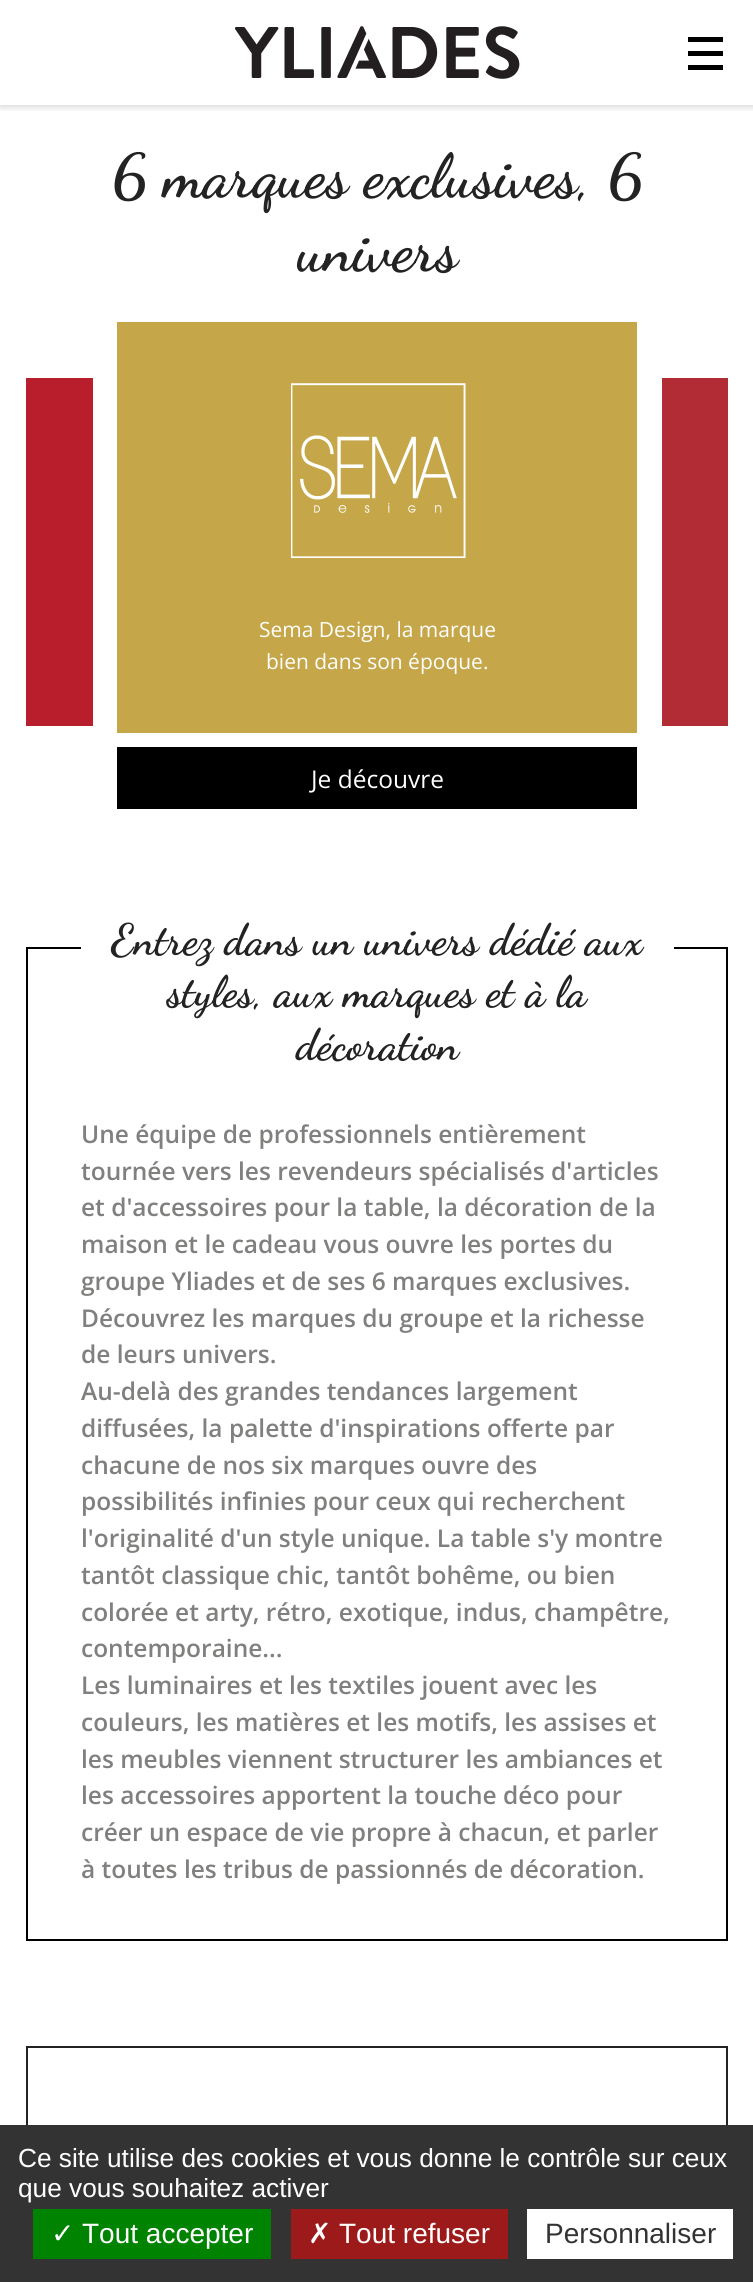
#include <cairo.h>
#include <math.h>
#include <stddef.h>


static void set_color(cairo_t *cr, unsigned color) {
    cairo_set_source_rgb(cr, (color >> 16) / 255.0, (color >> 8 & 255) / 255.0, (color & 255) / 255.0);
}

static void draw_text(cairo_t *cr, double x, double y, const char *s, const char *family, double size, int italic, int bold, unsigned color) {
    cairo_select_font_face(cr, family, italic ? CAIRO_FONT_SLANT_ITALIC : CAIRO_FONT_SLANT_NORMAL,
        bold ? CAIRO_FONT_WEIGHT_BOLD : CAIRO_FONT_WEIGHT_NORMAL);
    cairo_set_font_size(cr, size);
    set_color(cr, color);
    cairo_move_to(cr, x, y);
    cairo_show_text(cr, s);
}

static void fill_rect(cairo_t *cr, double x, double y, double w, double h, unsigned color) {
    set_color(cr, color);
    cairo_rectangle(cr, x, y, w, h);
    cairo_fill(cr);
}

static void rounded_rect(cairo_t *cr, double x, double y, double w, double h, double r) {
    cairo_new_sub_path(cr);
    cairo_arc(cr, x + w - r, y + h - r, r, 0, M_PI / 2);
    cairo_arc(cr, x + r, y + h - r, r, M_PI / 2, M_PI);
    cairo_arc(cr, x + r, y + r, r, M_PI, 1.5 * M_PI);
    cairo_arc(cr, x + w - r, y + r, r, 1.5 * M_PI, 2 * M_PI);
    cairo_close_path(cr);
}

static void draw_shadow(cairo_t *cr, double x, double y, double w, double h, double r, double blur, double alpha) {
    cairo_push_group_with_content(cr, CAIRO_CONTENT_ALPHA);
    cairo_set_operator(cr, CAIRO_OPERATOR_SOURCE);
    for (int i = 15; i >= -15 && fmin(w, h) + blur * i / 3 > 0; i -= 2) {
        double e = blur * i / 6;
        cairo_set_source_rgba(cr, 0, 0, 0, alpha * erfc((i - 1) / 8.5) / 2);
        rounded_rect(cr, x - e, y - e, w + 2 * e, h + 2 * e, fmax(0, fmin(r + e + blur * .6, fmin(w, h) / 2 + e)));
        cairo_fill(cr);
    }
    cairo_pattern_t *soft = cairo_pop_group(cr);
    cairo_mask(cr, soft);
    cairo_pattern_destroy(soft);
}

static void draw_image(cairo_t *cr, const char *path, double x, double y, double w, double h) {
    cairo_surface_t *image = cairo_image_surface_create_from_png(path);
    cairo_save(cr);
    cairo_set_source_surface(cr, image, x, y);
    cairo_rectangle(cr, x, y, w, h);
    cairo_fill(cr);
    cairo_restore(cr);
    cairo_surface_destroy(image);
}

int main(void) {
    cairo_surface_t *surface = cairo_image_surface_create(CAIRO_FORMAT_RGB24, 753, 2282);
    cairo_t *cr = cairo_create(surface);
    cairo_font_options_t *options = cairo_font_options_create();
    cairo_font_options_set_hint_metrics(options, CAIRO_HINT_METRICS_OFF);
    cairo_font_options_set_hint_style(options, CAIRO_HINT_STYLE_NONE);
    cairo_set_font_options(cr, options);
    cairo_set_miter_limit(cr, 4);
    set_color(cr, 0xFFFFFF);
    cairo_paint(cr);
    cairo_save(cr);
    cairo_rectangle(cr, 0, 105, 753, 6);
    cairo_clip(cr);
    set_color(cr, 0x000000);
    draw_shadow(cr, 0, 0, 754, 105, 0, 4.5, 0.25);
    cairo_restore(cr);
    draw_image(cr, "assets/img1.png", 235, 26, 285, 53);
    fill_rect(cr, 688, 37, 35, 5, 0x000000);
    fill_rect(cr, 688, 51, 35, 5, 0x000000);
    fill_rect(cr, 688, 65, 35, 5, 0x000000);
    draw_text(cr, 111, 196, "6 marques exclusives, 6", "Dancing Script", 61.25, 0, 1, 0x232323);
    draw_text(cr, 297, 270, "univers", "Dancing Script", 61.25, 0, 1, 0x232323);
    fill_rect(cr, 26, 378, 67, 348, 0xB81E2B);
    fill_rect(cr, 117, 322, 520, 411, 0xC5A649);
    draw_image(cr, "assets/img2.png", 291, 383, 175, 175);
    draw_text(cr, 259, 637, "Sema Design, la marque", "Open Sans", 21, 0, 0, 0xFFFFFF);
    draw_text(cr, 266, 669, "bien dans son époque.", "Open Sans", 21, 0, 0, 0xFFFFFF);
    fill_rect(cr, 117, 747, 520, 62, 0x000000);
    draw_text(cr, 311, 788, "Je découvre", "Open Sans", 24.5, 0, 0, 0xFFFFFF);
    fill_rect(cr, 662, 378, 66, 348, 0xB12C34);
    cairo_rectangle(cr, 27, 948, 700, 992);
    set_color(cr, 0x000000);
    cairo_stroke(cr);
    fill_rect(cr, 81, 947, 593, 2, 0xFFFFFF);
    draw_text(cr, 111, 954, "Entrez dans un univers dédié aux", "Dancing Script", 43.75, 0, 1, 0x232323);
    draw_text(cr, 167, 1006, "styles, aux marques et à la", "Dancing Script", 43.75, 0, 1, 0x232323);
    draw_text(cr, 296, 1059, "décoration", "Dancing Script", 43.75, 0, 1, 0x232323);
    draw_text(cr, 81, 1143, "Une équipe de professionnels entièrement", "Open Sans SemiBold", 24.5, 0, 0, 0x80807F);
    draw_text(cr, 81, 1180, "tournée vers les revendeurs spécialisés d'articles", "Open Sans SemiBold", 24.5, 0, 0, 0x80807F);
    draw_text(cr, 81, 1216, "et d'accessoires pour la table, la décoration de la", "Open Sans SemiBold", 24.5, 0, 0, 0x80807F);
    draw_text(cr, 81, 1253, "maison et le cadeau vous ouvre les portes du", "Open Sans SemiBold", 24.5, 0, 0, 0x80807F);
    draw_text(cr, 81, 1290, "groupe Yliades et de ses 6 marques exclusives.", "Open Sans SemiBold", 24.5, 0, 0, 0x80807F);
    draw_text(cr, 81, 1327, "Découvrez les marques du groupe et la richesse", "Open Sans SemiBold", 24.5, 0, 0, 0x80807F);
    draw_text(cr, 81, 1363, "de leurs univers.", "Open Sans SemiBold", 24.5, 0, 0, 0x80807F);
    draw_text(cr, 81, 1400, "Au-delà des grandes tendances largement", "Open Sans SemiBold", 24.5, 0, 0, 0x80807F);
    draw_text(cr, 81, 1437, "diffusées, la palette d'inspirations offerte par", "Open Sans SemiBold", 24.5, 0, 0, 0x80807F);
    draw_text(cr, 81, 1474, "chacune de nos six marques ouvre des", "Open Sans SemiBold", 24.5, 0, 0, 0x80807F);
    draw_text(cr, 81, 1510, "possibilités infinies pour ceux qui recherchent", "Open Sans SemiBold", 24.5, 0, 0, 0x80807F);
    draw_text(cr, 81, 1547, "l'originalité d'un style unique. La table s'y montre", "Open Sans SemiBold", 24.5, 0, 0, 0x80807F);
    draw_text(cr, 81, 1584, "tantôt classique chic, tantôt bohême, ou bien", "Open Sans SemiBold", 24.5, 0, 0, 0x80807F);
    draw_text(cr, 81, 1621, "colorée et arty, rétro, exotique, indus, champêtre,", "Open Sans SemiBold", 24.5, 0, 0, 0x80807F);
    draw_text(cr, 81, 1657, "contemporaine...", "Open Sans SemiBold", 24.5, 0, 0, 0x80807F);
    draw_text(cr, 81, 1694, "Les luminaires et les textiles jouent avec les", "Open Sans SemiBold", 24.5, 0, 0, 0x80807F);
    draw_text(cr, 81, 1731, "couleurs, les matières et les motifs, les assises et", "Open Sans SemiBold", 24.5, 0, 0, 0x80807F);
    draw_text(cr, 81, 1768, "les meubles viennent structurer les ambiances et", "Open Sans SemiBold", 24.5, 0, 0, 0x80807F);
    draw_text(cr, 81, 1804, "les accessoires apportent la touche déco pour", "Open Sans SemiBold", 24.5, 0, 0, 0x80807F);
    draw_text(cr, 81, 1841, "créer un espace de vie propre à chacun, et parler", "Open Sans SemiBold", 24.5, 0, 0, 0x80807F);
    draw_text(cr, 81, 1878, "à toutes les tribus de passionnés de décoration.", "Open Sans SemiBold", 24.5, 0, 0, 0x80807F);
    cairo_rectangle(cr, 27, 2047, 700, 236);
    set_color(cr, 0x232323);
    cairo_stroke(cr);
    fill_rect(cr, 0, 2125, 753, 157, 0x333333);
    draw_text(cr, 18, 2167, "Ce site utilise des cookies et vous donne le contrôle sur ceux", "Liberation Sans", 26.25, 0, 0, 0xFFFFFF);
    draw_text(cr, 18, 2197, "que vous souhaitez activer", "Liberation Sans", 26.25, 0, 0, 0xFFFFFF);
    fill_rect(cr, 33, 2209, 238, 50, 0x008300);
    draw_text(cr, 51, 2243, "✓", "DejaVu Sans", 28, 0, 0, 0xFFFFFF);
    draw_text(cr, 82, 2243, "Tout accepter", "Liberation Sans", 28, 0, 0, 0xFFFFFF);
    fill_rect(cr, 291, 2209, 217, 50, 0x9C1A1A);
    draw_text(cr, 308, 2243, "✗", "DejaVu Sans", 28, 0, 0, 0xFFFFFF);
    draw_text(cr, 339, 2243, "Tout refuser", "Liberation Sans", 28, 0, 0, 0xFFFFFF);
    fill_rect(cr, 527, 2209, 206, 50, 0xFFFFFF);
    draw_text(cr, 545, 2243, "Personnaliser", "Liberation Sans", 28, 0, 0, 0x333333);
    cairo_surface_write_to_png(surface, "output.png");
    cairo_font_options_destroy(options);
    cairo_destroy(cr);
    cairo_surface_destroy(surface);
    return 0;
}
